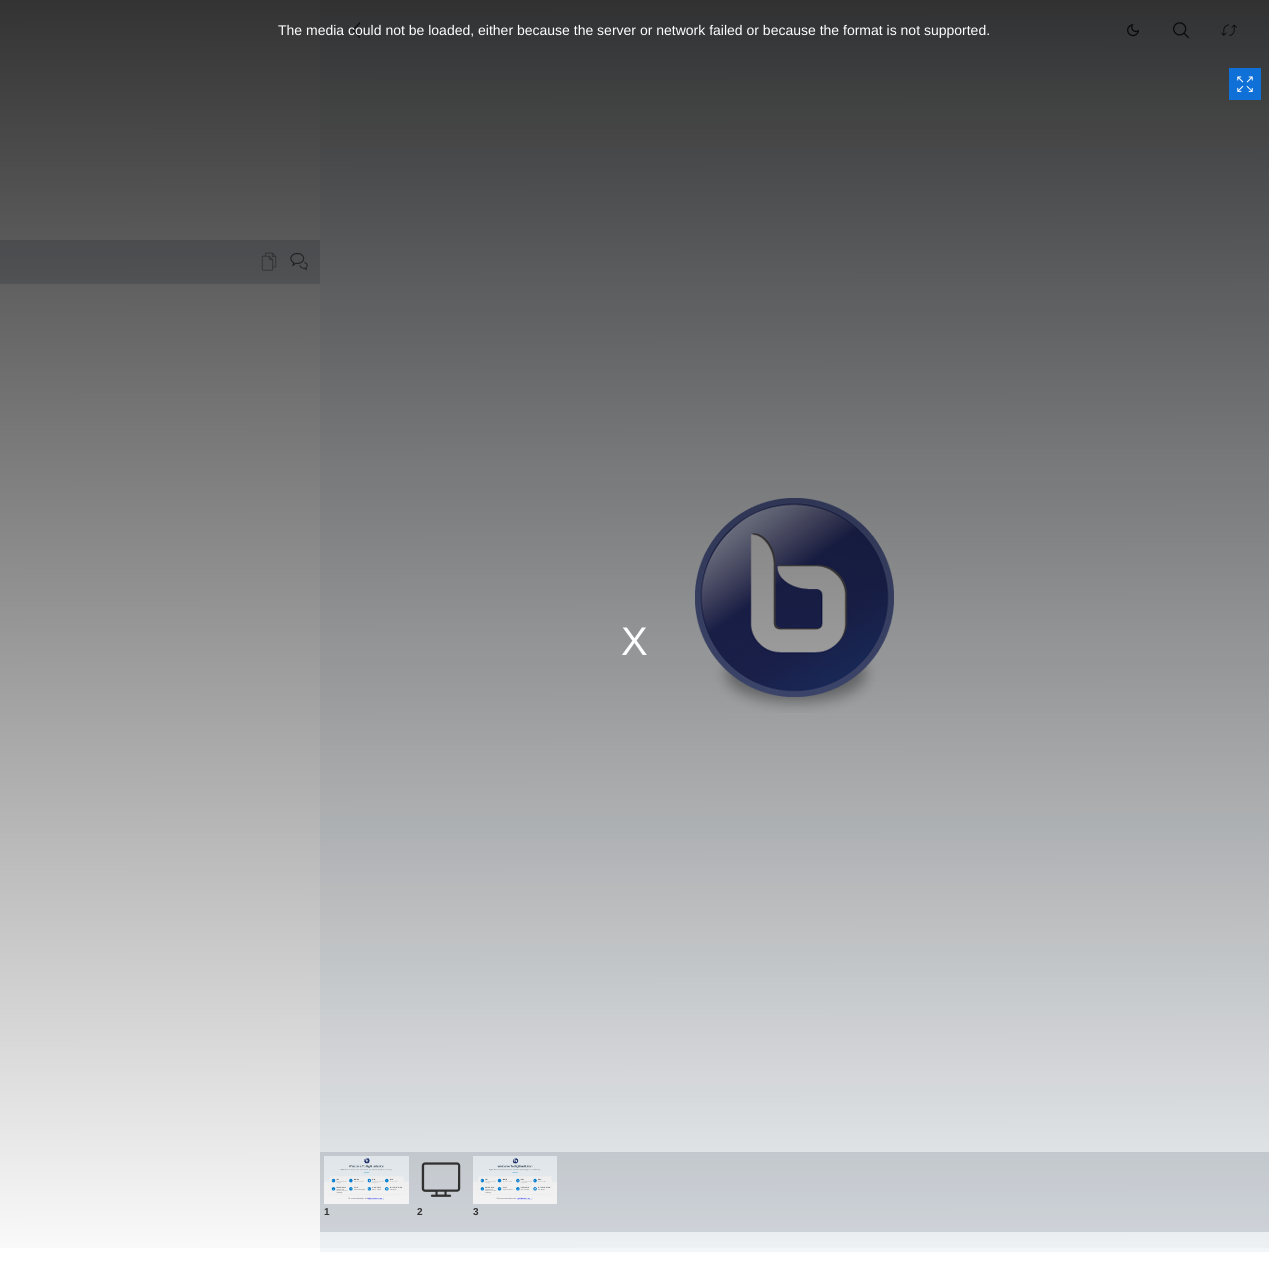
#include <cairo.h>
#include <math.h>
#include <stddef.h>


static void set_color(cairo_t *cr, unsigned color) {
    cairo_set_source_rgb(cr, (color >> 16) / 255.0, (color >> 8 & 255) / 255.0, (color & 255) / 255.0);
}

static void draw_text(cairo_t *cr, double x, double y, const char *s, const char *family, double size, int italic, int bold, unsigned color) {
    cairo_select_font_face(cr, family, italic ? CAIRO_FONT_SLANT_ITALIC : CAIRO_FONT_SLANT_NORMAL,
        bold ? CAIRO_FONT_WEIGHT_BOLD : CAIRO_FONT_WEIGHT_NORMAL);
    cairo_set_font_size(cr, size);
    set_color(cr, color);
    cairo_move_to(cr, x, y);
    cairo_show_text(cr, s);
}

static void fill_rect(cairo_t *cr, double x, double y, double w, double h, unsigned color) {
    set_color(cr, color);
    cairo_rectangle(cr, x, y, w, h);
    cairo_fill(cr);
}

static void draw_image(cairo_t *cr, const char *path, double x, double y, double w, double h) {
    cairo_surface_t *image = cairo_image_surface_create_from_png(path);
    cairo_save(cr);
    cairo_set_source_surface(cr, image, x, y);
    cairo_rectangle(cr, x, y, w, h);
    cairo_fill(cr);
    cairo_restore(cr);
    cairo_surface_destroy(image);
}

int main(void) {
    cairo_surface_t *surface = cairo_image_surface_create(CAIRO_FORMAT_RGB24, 1269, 1282);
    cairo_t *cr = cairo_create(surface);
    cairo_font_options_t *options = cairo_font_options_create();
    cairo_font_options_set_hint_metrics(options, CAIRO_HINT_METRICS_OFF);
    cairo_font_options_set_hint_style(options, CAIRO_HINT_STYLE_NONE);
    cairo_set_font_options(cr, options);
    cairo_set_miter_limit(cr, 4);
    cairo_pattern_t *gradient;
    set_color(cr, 0xFFFFFF);
    cairo_paint(cr);
    fill_rect(cr, 320, 0, 949, 1152, 0xF3F6F9);
    draw_image(cr, "assets/img1.png", 352, 22, 9, 16);
    draw_image(cr, "assets/img2.png", 1127, 24, 12, 13);
    draw_image(cr, "assets/img3.png", 1173, 22, 16, 17);
    draw_image(cr, "assets/img4.png", 1221, 24, 16, 12);
    fill_rect(cr, 0, 240, 320, 44, 0xD4D9DF);
    draw_image(cr, "assets/img5.png", 261, 252, 16, 19);
    draw_image(cr, "assets/img6.png", 290, 252, 18, 19);
    draw_image(cr, "assets/img8.png", 695, 498, 199, 215);
    fill_rect(cr, 320, 1152, 949, 80, 0xD4D9DF);
    draw_image(cr, "assets/img9.png", 324, 1156, 85, 48);
    draw_text(cr, 324, 1215, "1", "Liberation Sans", 10, 0, 1, 0x333333);
    draw_image(cr, "assets/img10.png", 421, 1162, 40, 35);
    draw_text(cr, 417, 1215, "2", "Liberation Sans", 10, 0, 1, 0x333333);
    draw_image(cr, "assets/img11.png", 473, 1156, 84, 48);
    draw_text(cr, 473, 1215, "3", "Liberation Sans", 10, 0, 1, 0x333333);
    fill_rect(cr, 320, 1232, 949, 20, 0xF3F6F9);
    gradient = cairo_pattern_create_linear(634, 0, 635, 1282);
    cairo_pattern_add_color_stop_rgba(gradient, 0, 0, 0, 0, 0.8);
    cairo_pattern_add_color_stop_rgba(gradient, 1, 0, 0, 0, 0);
    cairo_set_source(cr, gradient);
    cairo_pattern_destroy(gradient);
    cairo_rectangle(cr, 0, 0, 1269, 1248);
    cairo_fill(cr);
    draw_text(cr, 278, 35, "The media could not be loaded, either because the server or network failed or because the format is not supported.", "Liberation Sans", 14, 0, 0, 0xFFFFFF);
    draw_text(cr, 621, 655, "X", "Liberation Sans", 40, 0, 0, 0xFFFFFF);
    fill_rect(cr, 1229, 68, 32, 32, 0x0F70D7);
    draw_image(cr, "assets/img7.png", 1237, 76, 16, 16);
    cairo_surface_write_to_png(surface, "output.png");
    cairo_font_options_destroy(options);
    cairo_destroy(cr);
    cairo_surface_destroy(surface);
    return 0;
}
